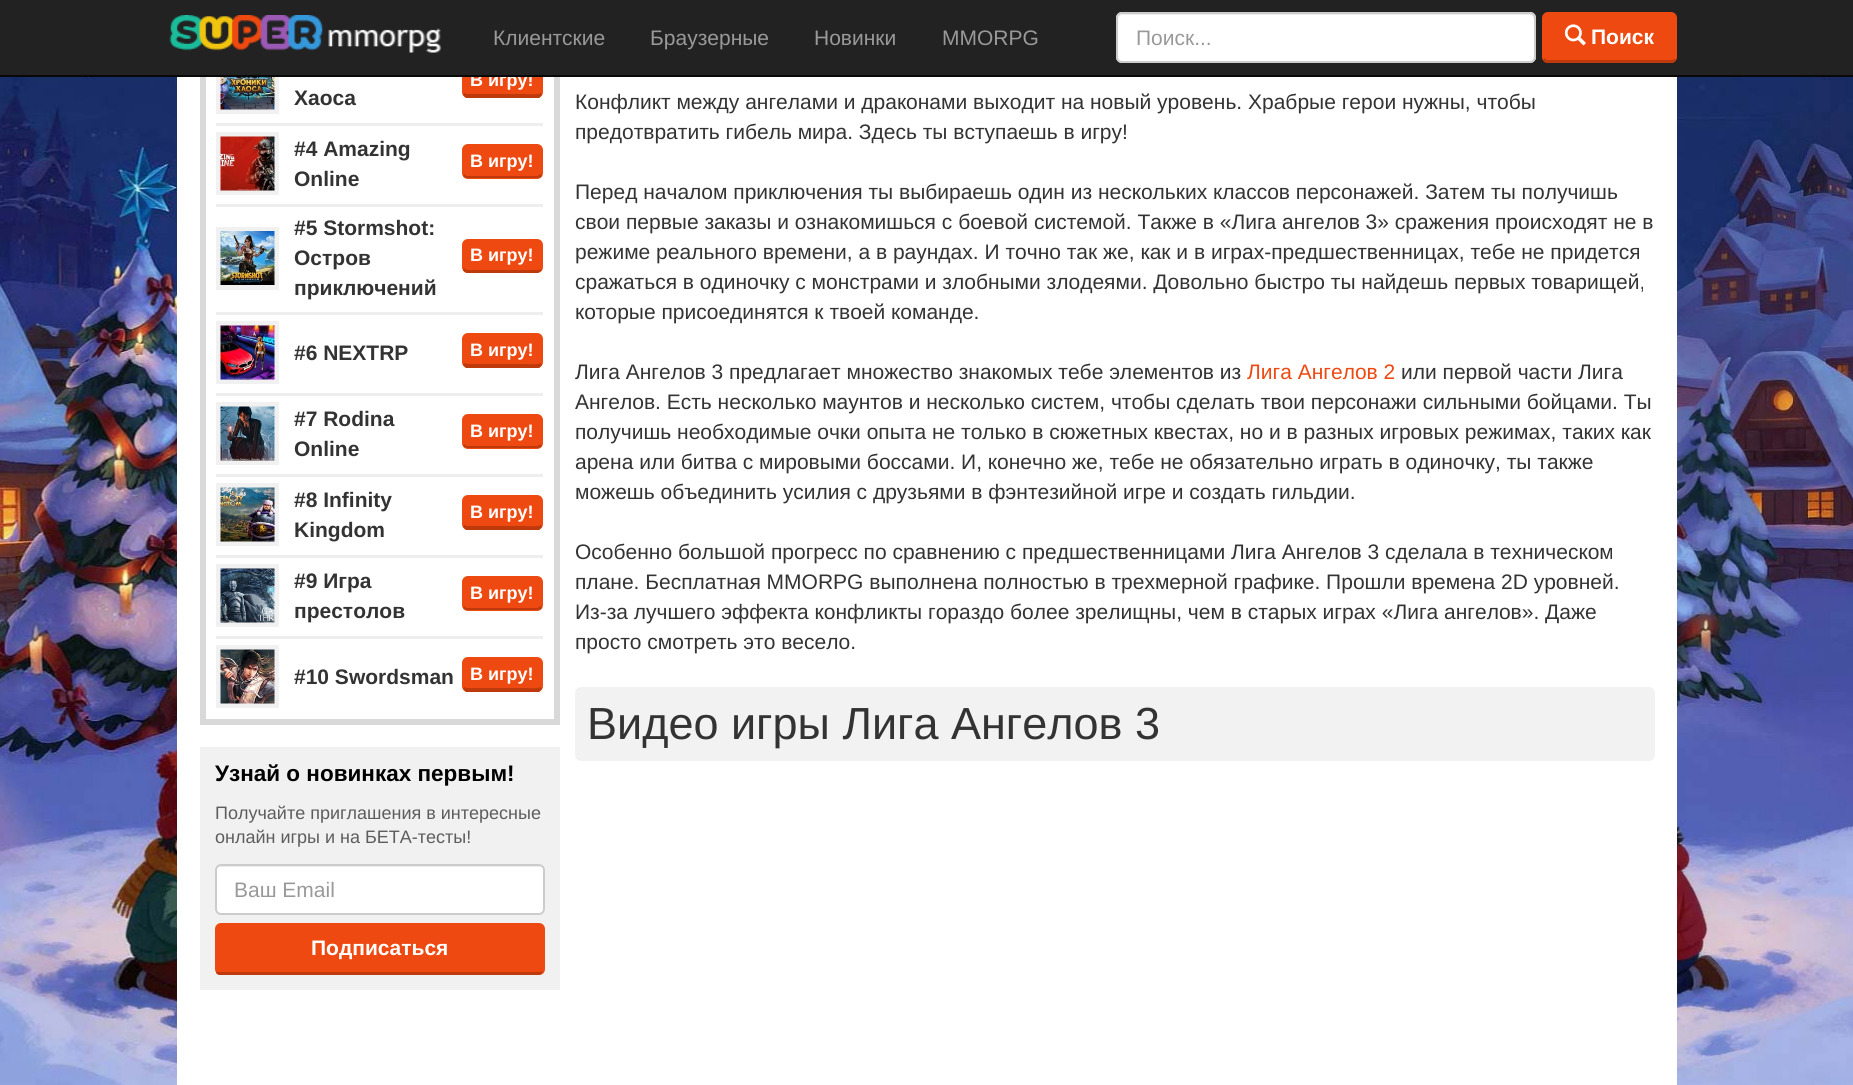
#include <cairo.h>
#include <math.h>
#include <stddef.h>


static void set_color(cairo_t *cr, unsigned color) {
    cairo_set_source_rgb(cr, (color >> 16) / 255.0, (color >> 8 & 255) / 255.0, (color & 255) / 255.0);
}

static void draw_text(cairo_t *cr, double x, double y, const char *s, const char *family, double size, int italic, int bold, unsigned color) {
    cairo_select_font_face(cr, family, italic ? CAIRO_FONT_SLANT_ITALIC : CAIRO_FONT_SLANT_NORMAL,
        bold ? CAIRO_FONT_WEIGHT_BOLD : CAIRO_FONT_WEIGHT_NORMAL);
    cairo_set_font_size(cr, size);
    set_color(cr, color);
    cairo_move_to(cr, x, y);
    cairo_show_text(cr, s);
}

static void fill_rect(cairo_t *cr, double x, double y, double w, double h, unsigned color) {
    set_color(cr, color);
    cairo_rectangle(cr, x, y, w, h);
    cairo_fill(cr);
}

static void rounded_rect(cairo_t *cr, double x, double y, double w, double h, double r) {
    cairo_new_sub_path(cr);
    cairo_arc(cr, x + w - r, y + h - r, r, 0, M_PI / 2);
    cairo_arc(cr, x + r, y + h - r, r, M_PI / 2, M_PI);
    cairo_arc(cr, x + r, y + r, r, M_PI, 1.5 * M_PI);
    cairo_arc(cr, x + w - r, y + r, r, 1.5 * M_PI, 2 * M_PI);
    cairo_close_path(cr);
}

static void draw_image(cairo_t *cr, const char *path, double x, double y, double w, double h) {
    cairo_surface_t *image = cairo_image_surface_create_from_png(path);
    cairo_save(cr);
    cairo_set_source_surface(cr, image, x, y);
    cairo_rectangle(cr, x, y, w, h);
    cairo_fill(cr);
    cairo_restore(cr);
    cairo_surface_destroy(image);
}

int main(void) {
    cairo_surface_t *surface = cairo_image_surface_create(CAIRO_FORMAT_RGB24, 1853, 1085);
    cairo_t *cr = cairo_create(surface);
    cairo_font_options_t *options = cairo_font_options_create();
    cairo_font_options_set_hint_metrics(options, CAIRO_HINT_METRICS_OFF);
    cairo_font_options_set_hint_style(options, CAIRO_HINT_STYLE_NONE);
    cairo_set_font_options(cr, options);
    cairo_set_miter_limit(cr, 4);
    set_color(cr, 0xFFFFFF);
    cairo_paint(cr);
    draw_image(cr, "assets/img1.png", 0, 77, 1853, 1008);
    fill_rect(cr, 177, 77, 1500, 1008, 0xFFFFFF);
    cairo_rectangle(cr, 203, -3, 354, 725);
    set_color(cr, 0xD9D9D9);
    cairo_set_line_width(cr, 6);
    cairo_stroke(cr);
    cairo_rectangle(cr, 218.5, 53.5, 58, 58);
    set_color(cr, 0xF1F1F1);
    cairo_set_line_width(cr, 5);
    cairo_stroke(cr);
    set_color(cr, 0xEE4910);
    rounded_rect(cr, 462, 63, 81, 35, 6);
    cairo_fill(cr);
    draw_text(cr, 470, 86, "В игру!", "Liberation Sans", 18, 0, 1, 0xFFFFFF);
    fill_rect(cr, 0, 0, 1853, 75, 0x222222);
    fill_rect(cr, 0, 75, 1853, 2, 0x080808);
    draw_image(cr, "assets/img2.png", 169, 15, 272, 38);
    draw_text(cr, 493, 45, "Клиентские", "Liberation Sans", 21, 0, 0, 0x999999);
    draw_text(cr, 650, 45, "Браузерные", "Liberation Sans", 21, 0, 0, 0x999999);
    draw_text(cr, 814, 45, "Новинки", "Liberation Sans", 21, 0, 0, 0x999999);
    draw_text(cr, 942, 45, "MMORPG", "Liberation Sans", 21, 0, 0, 0x999999);
    set_color(cr, 0xFFFFFF);
    rounded_rect(cr, 1116, 12, 420, 51, 6);
    cairo_fill(cr);
    set_color(cr, 0xECECEC);
    cairo_new_path(cr);
    cairo_move_to(cr, 1122, 15);
    cairo_line_to(cr, 1530, 15);
    cairo_curve_to(cr, 1532, 15, 1534, 17, 1534, 20);
    cairo_line_to(cr, 1534, 58);
    cairo_line_to(cr, 1533, 61);
    cairo_curve_to(cr, 1534, 60, 1535, 58, 1535, 57);
    cairo_line_to(cr, 1535, 19);
    cairo_curve_to(cr, 1535, 16, 1533, 14, 1530, 14);
    cairo_line_to(cr, 1123, 14);
    cairo_curve_to(cr, 1120, 14, 1118, 16, 1118, 19);
    cairo_line_to(cr, 1118, 20);
    cairo_curve_to(cr, 1118, 17, 1120, 15, 1122, 15);
    cairo_close_path(cr);
    cairo_fill(cr);
    rounded_rect(cr, 1117, 13, 418, 49, 5);
    set_color(cr, 0xCCCCCC);
    cairo_set_line_width(cr, 2);
    cairo_stroke(cr);
    draw_text(cr, 1136, 45, "Поиск...", "Liberation Sans", 21, 0, 0, 0x999999);
    set_color(cr, 0xEE4910);
    rounded_rect(cr, 1542, 12, 135, 51, 6);
    cairo_fill(cr);
    set_color(cr, 0xBE3A0D);
    cairo_new_path(cr);
    cairo_move_to(cr, 1548, 63);
    cairo_line_to(cr, 1671, 63);
    cairo_curve_to(cr, 1673, 63, 1675, 62, 1676, 60);
    cairo_line_to(cr, 1675, 59);
    cairo_line_to(cr, 1671, 60);
    cairo_line_to(cr, 1547, 60);
    cairo_line_to(cr, 1544, 58);
    cairo_line_to(cr, 1543, 60);
    cairo_curve_to(cr, 1544, 62, 1546, 63, 1548, 63);
    cairo_close_path(cr);
    cairo_fill(cr);
    draw_image(cr, "assets/img3.png", 1564, 24, 22, 22);
    draw_text(cr, 1591, 44, "Поиск", "Liberation Sans", 21, 0, 1, 0xFFFFFF);
    draw_image(cr, "assets/img4.png", 220, 77, 55, 33);
    set_color(cr, 0xBE3A0D);
    cairo_new_path(cr);
    cairo_move_to(cr, 466, 98);
    cairo_line_to(cr, 463, 95);
    cairo_line_to(cr, 464, 93);
    cairo_line_to(cr, 467, 94);
    cairo_line_to(cr, 526, 94);
    cairo_curve_to(cr, 528, 94, 537, 95, 541, 93);
    cairo_line_to(cr, 542, 95);
    cairo_line_to(cr, 539, 98);
    cairo_close_path(cr);
    cairo_fill(cr);
    draw_text(cr, 294, 105, "Хаоса", "Liberation Sans", 21, 0, 1, 0x333333);
    fill_rect(cr, 216, 123, 327, 3, 0xEEEEEE);
    cairo_rectangle(cr, 218.5, 134.5, 58, 58);
    set_color(cr, 0xF1F1F1);
    cairo_set_line_width(cr, 5);
    cairo_stroke(cr);
    draw_image(cr, "assets/img5.png", 220, 136, 55, 55);
    draw_text(cr, 294, 156, "#4 Amazing", "Liberation Sans", 21, 0, 1, 0x333333);
    draw_text(cr, 294, 186, "Online", "Liberation Sans", 21, 0, 1, 0x333333);
    set_color(cr, 0xEE4910);
    rounded_rect(cr, 462, 144, 81, 35, 6);
    cairo_fill(cr);
    set_color(cr, 0xBE3A0D);
    cairo_new_path(cr);
    cairo_move_to(cr, 542, 176);
    cairo_curve_to(cr, 541, 177, 539, 178, 537, 178);
    cairo_line_to(cr, 468, 178);
    cairo_curve_to(cr, 466, 178, 464, 177, 463, 176);
    cairo_line_to(cr, 464, 174);
    cairo_curve_to(cr, 465, 175, 466, 176, 467, 176);
    cairo_line_to(cr, 537, 176);
    cairo_line_to(cr, 541, 174);
    cairo_close_path(cr);
    cairo_fill(cr);
    draw_text(cr, 470, 167, "В игру!", "Liberation Sans", 18, 0, 1, 0xFFFFFF);
    fill_rect(cr, 216, 204, 327, 3, 0xEEEEEE);
    cairo_rectangle(cr, 218.5, 229.5, 58, 58);
    set_color(cr, 0xF1F1F1);
    cairo_stroke(cr);
    draw_image(cr, "assets/img6.png", 220, 231, 55, 54);
    draw_text(cr, 294, 235, "#5 Stormshot:", "Liberation Sans", 21, 0, 1, 0x333333);
    draw_text(cr, 294, 265, "Остров", "Liberation Sans", 21, 0, 1, 0x333333);
    draw_text(cr, 294, 295, "приключений", "Liberation Sans", 21, 0, 1, 0x333333);
    set_color(cr, 0xEE4910);
    rounded_rect(cr, 462, 239, 81, 34, 6);
    cairo_fill(cr);
    set_color(cr, 0xBE3A0D);
    cairo_new_path(cr);
    cairo_move_to(cr, 468, 273);
    cairo_line_to(cr, 538, 273);
    cairo_line_to(cr, 542, 270);
    cairo_line_to(cr, 541, 269);
    cairo_curve_to(cr, 540, 270, 538, 270, 537, 270);
    cairo_line_to(cr, 468, 270);
    cairo_curve_to(cr, 466, 270, 465, 269, 464, 268);
    cairo_line_to(cr, 463, 270);
    cairo_curve_to(cr, 464, 272, 466, 273, 468, 273);
    cairo_close_path(cr);
    cairo_fill(cr);
    draw_text(cr, 470, 261, "В игру!", "Liberation Sans", 18, 0, 1, 0xFFFFFF);
    fill_rect(cr, 216, 312, 327, 3, 0xEEEEEE);
    cairo_rectangle(cr, 218.5, 323.5, 58, 58);
    set_color(cr, 0xF1F1F1);
    cairo_stroke(cr);
    draw_image(cr, "assets/img7.png", 220, 325, 55, 55);
    draw_text(cr, 294, 360, "#6 NEXTRP", "Liberation Sans", 21, 0, 1, 0x333333);
    set_color(cr, 0xEE4910);
    rounded_rect(cr, 462, 333, 81, 35, 6);
    cairo_fill(cr);
    set_color(cr, 0xBE3A0D);
    cairo_new_path(cr);
    cairo_move_to(cr, 466, 368);
    cairo_line_to(cr, 463, 365);
    cairo_line_to(cr, 464, 363);
    cairo_line_to(cr, 467, 364);
    cairo_line_to(cr, 526, 364);
    cairo_curve_to(cr, 528, 364, 537, 365, 541, 363);
    cairo_line_to(cr, 542, 365);
    cairo_line_to(cr, 539, 368);
    cairo_close_path(cr);
    cairo_fill(cr);
    draw_text(cr, 470, 356, "В игру!", "Liberation Sans", 18, 0, 1, 0xFFFFFF);
    fill_rect(cr, 216, 393, 327, 3, 0xEEEEEE);
    cairo_rectangle(cr, 218.5, 404.5, 58, 58);
    set_color(cr, 0xF1F1F1);
    cairo_stroke(cr);
    draw_image(cr, "assets/img8.png", 220, 406, 55, 55);
    draw_text(cr, 294, 426, "#7 Rodina", "Liberation Sans", 21, 0, 1, 0x333333);
    draw_text(cr, 294, 456, "Online", "Liberation Sans", 21, 0, 1, 0x333333);
    set_color(cr, 0xEE4910);
    rounded_rect(cr, 462, 414, 81, 35, 6);
    cairo_fill(cr);
    set_color(cr, 0xBE3A0D);
    cairo_new_path(cr);
    cairo_move_to(cr, 542, 446);
    cairo_curve_to(cr, 541, 447, 539, 448, 537, 448);
    cairo_line_to(cr, 468, 448);
    cairo_curve_to(cr, 466, 448, 464, 447, 463, 446);
    cairo_line_to(cr, 464, 444);
    cairo_curve_to(cr, 465, 445, 466, 446, 467, 446);
    cairo_line_to(cr, 537, 446);
    cairo_line_to(cr, 541, 444);
    cairo_close_path(cr);
    cairo_fill(cr);
    draw_text(cr, 470, 437, "В игру!", "Liberation Sans", 18, 0, 1, 0xFFFFFF);
    fill_rect(cr, 216, 474, 327, 3, 0xEEEEEE);
    cairo_rectangle(cr, 218.5, 485.5, 58, 58);
    set_color(cr, 0xF1F1F1);
    cairo_stroke(cr);
    draw_image(cr, "assets/img9.png", 220, 487, 55, 55);
    draw_text(cr, 294, 507, "#8 Infinity", "Liberation Sans", 21, 0, 1, 0x333333);
    draw_text(cr, 294, 537, "Kingdom", "Liberation Sans", 21, 0, 1, 0x333333);
    set_color(cr, 0xEE4910);
    rounded_rect(cr, 462, 495, 81, 35, 6);
    cairo_fill(cr);
    set_color(cr, 0xBE3A0D);
    cairo_new_path(cr);
    cairo_move_to(cr, 466, 530);
    cairo_line_to(cr, 463, 527);
    cairo_line_to(cr, 464, 525);
    cairo_line_to(cr, 467, 526);
    cairo_line_to(cr, 526, 526);
    cairo_curve_to(cr, 528, 526, 537, 527, 541, 525);
    cairo_line_to(cr, 542, 527);
    cairo_line_to(cr, 539, 530);
    cairo_close_path(cr);
    cairo_fill(cr);
    draw_text(cr, 470, 518, "В игру!", "Liberation Sans", 18, 0, 1, 0xFFFFFF);
    fill_rect(cr, 216, 555, 327, 3, 0xEEEEEE);
    cairo_rectangle(cr, 218.5, 566.5, 58, 58);
    set_color(cr, 0xF1F1F1);
    cairo_stroke(cr);
    draw_image(cr, "assets/img10.png", 220, 568, 55, 55);
    draw_text(cr, 294, 588, "#9 Игра", "Liberation Sans", 21, 0, 1, 0x333333);
    draw_text(cr, 294, 618, "престолов", "Liberation Sans", 21, 0, 1, 0x333333);
    set_color(cr, 0xEE4910);
    rounded_rect(cr, 462, 576, 81, 35, 6);
    cairo_fill(cr);
    set_color(cr, 0xBE3A0D);
    cairo_new_path(cr);
    cairo_move_to(cr, 542, 608);
    cairo_curve_to(cr, 541, 609, 539, 610, 537, 610);
    cairo_line_to(cr, 468, 610);
    cairo_curve_to(cr, 466, 610, 464, 609, 463, 608);
    cairo_line_to(cr, 464, 606);
    cairo_curve_to(cr, 465, 607, 466, 608, 467, 608);
    cairo_line_to(cr, 537, 608);
    cairo_line_to(cr, 541, 606);
    cairo_close_path(cr);
    cairo_fill(cr);
    draw_text(cr, 470, 599, "В игру!", "Liberation Sans", 18, 0, 1, 0xFFFFFF);
    fill_rect(cr, 216, 636, 327, 3, 0xEEEEEE);
    cairo_rectangle(cr, 218.5, 647.5, 58, 58);
    set_color(cr, 0xF1F1F1);
    cairo_stroke(cr);
    draw_image(cr, "assets/img11.png", 220, 649, 55, 55);
    draw_text(cr, 294, 684, "#10 Swordsman", "Liberation Sans", 21, 0, 1, 0x333333);
    set_color(cr, 0xEE4910);
    rounded_rect(cr, 462, 657, 81, 35, 6);
    cairo_fill(cr);
    set_color(cr, 0xBE3A0D);
    cairo_new_path(cr);
    cairo_move_to(cr, 466, 692);
    cairo_line_to(cr, 463, 689);
    cairo_line_to(cr, 464, 687);
    cairo_line_to(cr, 467, 688);
    cairo_line_to(cr, 526, 688);
    cairo_curve_to(cr, 528, 688, 537, 689, 541, 687);
    cairo_line_to(cr, 542, 689);
    cairo_line_to(cr, 539, 692);
    cairo_close_path(cr);
    cairo_fill(cr);
    draw_text(cr, 470, 680, "В игру!", "Liberation Sans", 18, 0, 1, 0xFFFFFF);
    fill_rect(cr, 200, 747, 360, 243, 0xF1F1F1);
    draw_text(cr, 215, 781, "Узнай о новинках первым!", "Liberation Sans", 22.5, 0, 1, 0x000000);
    draw_text(cr, 215, 819, "Получайте приглашения в интересные", "Liberation Sans", 18, 0, 0, 0x5D5D5D);
    draw_text(cr, 215, 843, "онлайн игры и на БЕТА-тесты!", "Liberation Sans", 18, 0, 0, 0x5D5D5D);
    set_color(cr, 0xFFFFFF);
    rounded_rect(cr, 215, 864, 330, 51, 6);
    cairo_fill(cr);
    set_color(cr, 0xECECEC);
    cairo_new_path(cr);
    cairo_move_to(cr, 220, 867);
    cairo_line_to(cr, 538, 867);
    cairo_curve_to(cr, 541, 867, 543, 869, 543, 872);
    cairo_curve_to(cr, 543, 869, 541, 866, 538, 866);
    cairo_line_to(cr, 221, 866);
    cairo_curve_to(cr, 218, 866, 216, 869, 216, 872);
    cairo_curve_to(cr, 216, 869, 218, 867, 220, 867);
    cairo_close_path(cr);
    cairo_fill(cr);
    rounded_rect(cr, 216, 865, 328, 49, 5);
    set_color(cr, 0xCCCCCC);
    cairo_set_line_width(cr, 2);
    cairo_stroke(cr);
    draw_text(cr, 234, 897, "Ваш Email", "Liberation Sans", 21, 0, 0, 0x999999);
    set_color(cr, 0xEE4910);
    rounded_rect(cr, 215, 923, 330, 52, 6);
    cairo_fill(cr);
    set_color(cr, 0xBE3A0D);
    cairo_new_path(cr);
    cairo_move_to(cr, 220, 975);
    cairo_line_to(cr, 538, 975);
    cairo_curve_to(cr, 540, 975, 542, 974, 543, 972);
    cairo_line_to(cr, 542, 971);
    cairo_curve_to(cr, 542, 972, 540, 972, 538, 972);
    cairo_line_to(cr, 220, 972);
    cairo_curve_to(cr, 219, 972, 217, 972, 217, 971);
    cairo_line_to(cr, 216, 973);
    cairo_curve_to(cr, 217, 974, 218, 975, 220, 975);
    cairo_close_path(cr);
    cairo_fill(cr);
    draw_text(cr, 311, 955, "Подписаться", "Liberation Sans", 21, 0, 1, 0xFFFFFF);
    draw_text(cr, 575, 109, "Конфликт между ангелами и драконами выходит на новый уровень. Храбрые герои нужны, чтобы", "Liberation Sans", 21, 0, 0, 0x333333);
    draw_text(cr, 575, 139, "предотвратить гибель мира. Здесь ты вступаешь в игру!", "Liberation Sans", 21, 0, 0, 0x333333);
    draw_text(cr, 575, 199, "Перед началом приключения ты выбираешь один из нескольких классов персонажей. Затем ты получишь", "Liberation Sans", 21, 0, 0, 0x333333);
    draw_text(cr, 575, 229, "свои первые заказы и ознакомишься с боевой системой. Также в «Лига ангелов 3» сражения происходят не в", "Liberation Sans", 21, 0, 0, 0x333333);
    draw_text(cr, 575, 259, "режиме реального времени, а в раундах. И точно так же, как и в играх-предшественницах, тебе не придется", "Liberation Sans", 21, 0, 0, 0x333333);
    draw_text(cr, 575, 289, "сражаться в одиночку с монстрами и злобными злодеями. Довольно быстро ты найдешь первых товарищей,", "Liberation Sans", 21, 0, 0, 0x333333);
    draw_text(cr, 575, 319, "которые присоединятся к твоей команде.", "Liberation Sans", 21, 0, 0, 0x333333);
    draw_text(cr, 575, 379, "Лига Ангелов 3 предлагает множество знакомых тебе элементов из", "Liberation Sans", 21, 0, 0, 0x333333);
    draw_text(cr, 1247, 379, "Лига Ангелов 2", "Liberation Sans", 21, 0, 0, 0xEE4910);
    draw_text(cr, 1401, 379, "или первой части Лига", "Liberation Sans", 21, 0, 0, 0x333333);
    draw_text(cr, 575, 409, "Ангелов. Есть несколько маунтов и несколько систем, чтобы сделать твои персонажи сильными бойцами. Ты", "Liberation Sans", 21, 0, 0, 0x333333);
    draw_text(cr, 575, 439, "получишь необходимые очки опыта не только в сюжетных квестах, но и в разных игровых режимах, таких как", "Liberation Sans", 21, 0, 0, 0x333333);
    draw_text(cr, 575, 469, "арена или битва с мировыми боссами. И, конечно же, тебе не обязательно играть в одиночку, ты также", "Liberation Sans", 21, 0, 0, 0x333333);
    draw_text(cr, 575, 499, "можешь объединить усилия с друзьями в фэнтезийной игре и создать гильдии.", "Liberation Sans", 21, 0, 0, 0x333333);
    draw_text(cr, 575, 559, "Особенно большой прогресс по сравнению с предшественницами Лига Ангелов 3 сделала в техническом", "Liberation Sans", 21, 0, 0, 0x333333);
    draw_text(cr, 575, 589, "плане. Бесплатная MMORPG выполнена полностью в трехмерной графике. Прошли времена 2D уровней.", "Liberation Sans", 21, 0, 0, 0x333333);
    draw_text(cr, 575, 619, "Из-за лучшего эффекта конфликты гораздо более зрелищны, чем в старых играх «Лига ангелов». Даже", "Liberation Sans", 21, 0, 0, 0x333333);
    draw_text(cr, 575, 649, "просто смотреть это весело.", "Liberation Sans", 21, 0, 0, 0x333333);
    set_color(cr, 0xF2F2F2);
    rounded_rect(cr, 575, 687, 1080, 74, 6);
    cairo_fill(cr);
    draw_text(cr, 587, 739, "Видео игры Лига Ангелов 3", "Liberation Sans", 45, 0, 0, 0x333333);
    cairo_surface_write_to_png(surface, "output.png");
    cairo_font_options_destroy(options);
    cairo_destroy(cr);
    cairo_surface_destroy(surface);
    return 0;
}
